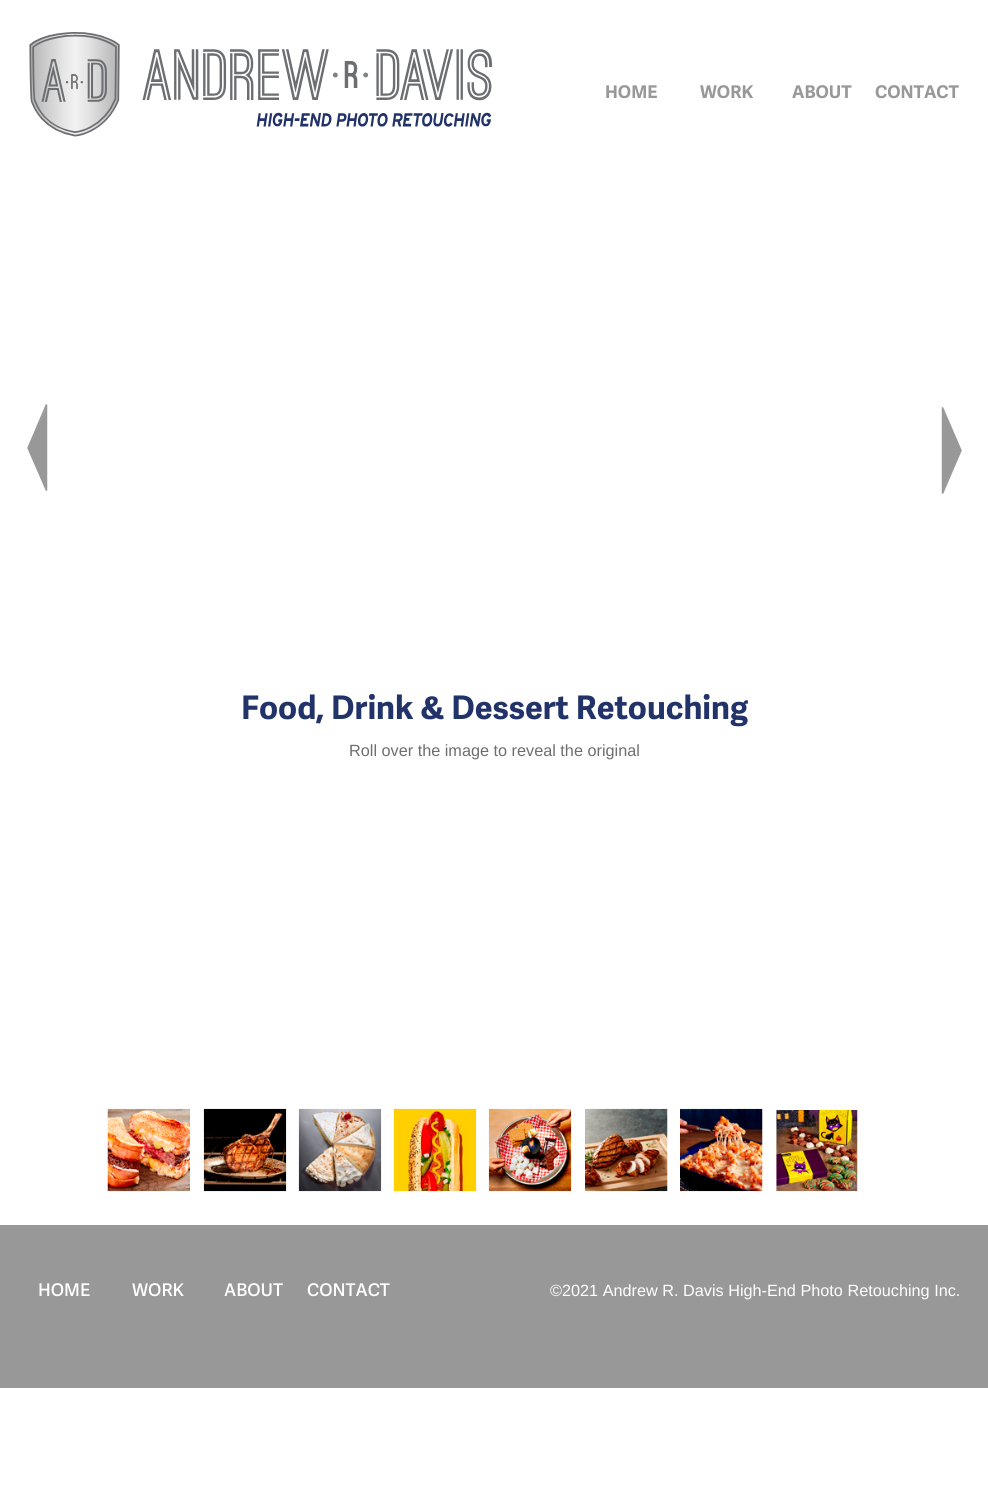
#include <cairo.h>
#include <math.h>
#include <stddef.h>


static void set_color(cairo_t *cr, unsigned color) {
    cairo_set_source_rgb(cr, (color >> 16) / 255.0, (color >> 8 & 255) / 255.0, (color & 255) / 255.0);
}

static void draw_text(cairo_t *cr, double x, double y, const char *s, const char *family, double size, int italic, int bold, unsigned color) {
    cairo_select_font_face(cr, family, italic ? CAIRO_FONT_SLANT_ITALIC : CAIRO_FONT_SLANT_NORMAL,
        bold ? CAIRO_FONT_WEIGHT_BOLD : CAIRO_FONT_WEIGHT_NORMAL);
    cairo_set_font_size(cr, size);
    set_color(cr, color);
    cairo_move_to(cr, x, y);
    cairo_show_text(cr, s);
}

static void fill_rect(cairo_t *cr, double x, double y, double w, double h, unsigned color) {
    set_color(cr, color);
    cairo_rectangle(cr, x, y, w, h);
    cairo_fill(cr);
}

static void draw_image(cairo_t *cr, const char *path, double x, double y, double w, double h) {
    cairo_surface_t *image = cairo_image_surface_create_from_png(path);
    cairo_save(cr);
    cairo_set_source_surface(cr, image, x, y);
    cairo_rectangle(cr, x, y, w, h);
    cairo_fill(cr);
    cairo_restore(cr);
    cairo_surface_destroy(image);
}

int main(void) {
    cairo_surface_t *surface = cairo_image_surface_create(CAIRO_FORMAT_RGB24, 988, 1486);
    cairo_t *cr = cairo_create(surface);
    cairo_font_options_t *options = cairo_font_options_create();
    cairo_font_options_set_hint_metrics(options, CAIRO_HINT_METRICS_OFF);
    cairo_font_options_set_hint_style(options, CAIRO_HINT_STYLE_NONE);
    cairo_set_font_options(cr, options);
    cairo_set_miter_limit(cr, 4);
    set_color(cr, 0xFFFFFF);
    cairo_paint(cr);
    draw_image(cr, "assets/img1.png", 29, 32, 463, 105);
    draw_text(cr, 605, 98, "HOME", "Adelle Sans", 17.5, 0, 1, 0x989898);
    draw_text(cr, 700, 98, "WORK", "Adelle Sans", 17.5, 0, 1, 0x989898);
    draw_text(cr, 792, 98, "ABOUT", "Adelle Sans", 17.5, 0, 1, 0x989898);
    draw_text(cr, 875, 98, "CONTACT", "Adelle Sans", 17.5, 0, 1, 0x989898);
    cairo_new_path(cr);
    cairo_move_to(cr, 28, 448);
    cairo_line_to(cr, 47, 491);
    cairo_line_to(cr, 47, 405);
    cairo_close_path(cr);
    cairo_fill(cr);
    cairo_new_path(cr);
    cairo_move_to(cr, 28, 448);
    cairo_line_to(cr, 46.5, 490.5);
    cairo_line_to(cr, 46.5, 404.5);
    cairo_close_path(cr);
    cairo_set_line_width(cr, 1.5);
    cairo_set_line_cap(cr, CAIRO_LINE_CAP_ROUND);
    cairo_stroke(cr);
    cairo_new_path(cr);
    cairo_move_to(cr, 961, 450);
    cairo_line_to(cr, 942, 407);
    cairo_line_to(cr, 942, 494);
    cairo_close_path(cr);
    cairo_fill(cr);
    cairo_new_path(cr);
    cairo_move_to(cr, 961, 450.5);
    cairo_line_to(cr, 942.5, 407.5);
    cairo_line_to(cr, 942.5, 493.5);
    cairo_close_path(cr);
    cairo_stroke(cr);
    draw_text(cr, 241, 719, "Food, Drink & Dessert Retouching", "Adelle Sans", 32.5, 0, 1, 0x223369);
    draw_text(cr, 349, 756, "Roll over the image to reveal the original", "Liberation Sans", 16.25, 0, 0, 0x6D6E71);
    draw_image(cr, "assets/img2.png", 107, 1108, 83, 84);
    draw_image(cr, "assets/img3.png", 203, 1108, 84, 84);
    draw_image(cr, "assets/img4.png", 298, 1108, 84, 84);
    draw_image(cr, "assets/img5.png", 393, 1108, 84, 84);
    draw_image(cr, "assets/img6.png", 488, 1108, 84, 84);
    draw_image(cr, "assets/img7.png", 585, 1108, 83, 84);
    draw_image(cr, "assets/img8.png", 680, 1108, 83, 84);
    draw_image(cr, "assets/img9.png", 776, 1110, 82, 82);
    fill_rect(cr, 0, 1225, 988, 163, 0x989898);
    draw_text(cr, 38, 1296, "HOME", "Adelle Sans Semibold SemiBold", 17.5, 0, 0, 0xFFFFFF);
    draw_text(cr, 132, 1296, "WORK", "Adelle Sans Semibold SemiBold", 17.5, 0, 0, 0xFFFFFF);
    draw_text(cr, 224, 1296, "ABOUT", "Adelle Sans Semibold SemiBold", 17.5, 0, 0, 0xFFFFFF);
    draw_text(cr, 307, 1296, "CONTACT", "Adelle Sans Semibold SemiBold", 17.5, 0, 0, 0xFFFFFF);
    draw_text(cr, 550, 1296, "©2021 Andrew R. Davis High-End Photo Retouching Inc.", "Liberation Sans", 16.25, 0, 0, 0xFFFFFF);
    cairo_surface_write_to_png(surface, "output.png");
    cairo_font_options_destroy(options);
    cairo_destroy(cr);
    cairo_surface_destroy(surface);
    return 0;
}
